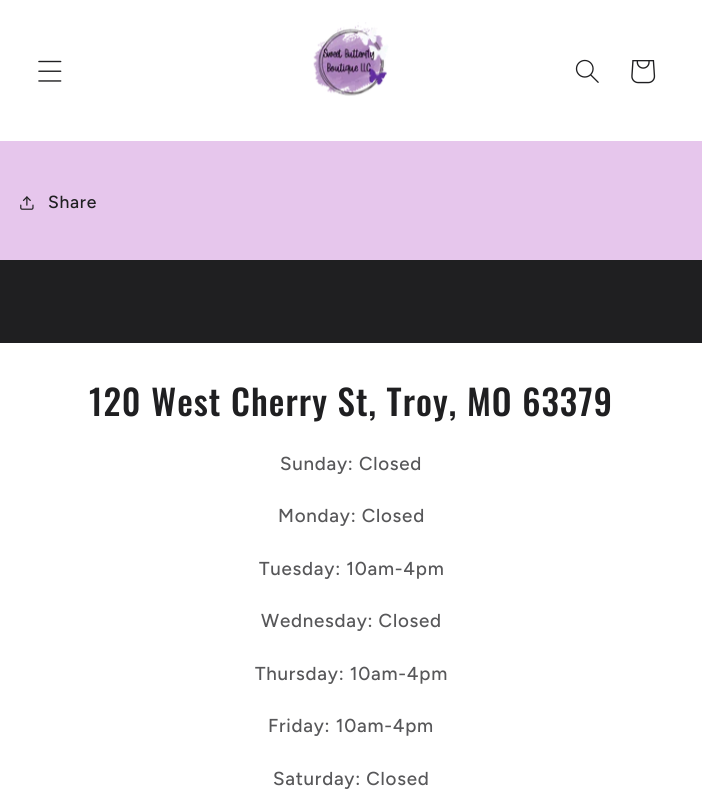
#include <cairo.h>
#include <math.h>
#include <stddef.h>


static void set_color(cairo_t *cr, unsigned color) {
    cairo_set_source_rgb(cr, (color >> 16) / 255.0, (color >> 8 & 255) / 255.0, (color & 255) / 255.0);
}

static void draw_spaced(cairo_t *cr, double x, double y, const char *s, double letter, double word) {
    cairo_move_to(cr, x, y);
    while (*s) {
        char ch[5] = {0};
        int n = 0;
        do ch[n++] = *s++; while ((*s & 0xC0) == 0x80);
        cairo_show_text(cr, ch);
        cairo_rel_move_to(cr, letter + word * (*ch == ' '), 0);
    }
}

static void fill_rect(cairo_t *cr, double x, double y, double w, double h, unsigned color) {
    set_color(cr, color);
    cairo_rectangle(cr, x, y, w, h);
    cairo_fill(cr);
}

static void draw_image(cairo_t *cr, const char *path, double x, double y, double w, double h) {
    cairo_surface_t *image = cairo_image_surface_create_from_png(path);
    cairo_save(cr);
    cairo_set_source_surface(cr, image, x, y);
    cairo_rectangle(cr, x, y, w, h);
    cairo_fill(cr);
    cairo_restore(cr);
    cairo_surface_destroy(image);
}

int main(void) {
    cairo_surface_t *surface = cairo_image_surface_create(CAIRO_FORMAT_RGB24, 702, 791);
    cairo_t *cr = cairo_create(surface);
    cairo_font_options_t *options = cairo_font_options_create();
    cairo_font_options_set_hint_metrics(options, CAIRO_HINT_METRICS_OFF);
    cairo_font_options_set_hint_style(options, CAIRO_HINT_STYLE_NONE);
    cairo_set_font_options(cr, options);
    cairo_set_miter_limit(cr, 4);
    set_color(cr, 0x1F1F21);
    cairo_paint(cr);
    fill_rect(cr, 0, 0, 702, 141, 0xFFFFFF);
    draw_image(cr, "assets/img1.png", 38, 60, 24, 22);
    draw_image(cr, "assets/img2.png", 313, 22, 76, 74);
    draw_image(cr, "assets/img3.png", 575, 59, 24, 24);
    draw_image(cr, "assets/img4.png", 631, 60, 25, 24);
    fill_rect(cr, 0, 141, 702, 119, 0xE6C6EC);
    draw_image(cr, "assets/img5.png", 20, 196, 14, 14);
    cairo_select_font_face(cr, "Figtree Medium", CAIRO_FONT_SLANT_NORMAL, CAIRO_FONT_WEIGHT_NORMAL);
    cairo_set_font_size(cr, 17.5);
    set_color(cr, 0x1F1F21);
    draw_spaced(cr, 48, 208, "Share", 0.75, 0);
    fill_rect(cr, 0, 343, 702, 448, 0xFFFFFF);
    cairo_select_font_face(cr, "Oswald Medium", CAIRO_FONT_SLANT_NORMAL, CAIRO_FONT_WEIGHT_NORMAL);
    cairo_set_font_size(cr, 35);
    set_color(cr, 0x1F1F21);
    draw_spaced(cr, 89, 416, "120 West Cherry St, Troy, MO 63379", 1.05, 0);
    cairo_select_font_face(cr, "Figtree Medium", CAIRO_FONT_SLANT_NORMAL, CAIRO_FONT_WEIGHT_NORMAL);
    cairo_set_font_size(cr, 18.75);
    set_color(cr, 0x575759);
    draw_spaced(cr, 280, 470, "Sunday: Closed", 0.75, 0);
    draw_spaced(cr, 278, 522, "Monday: Closed", 0.75, 0);
    draw_spaced(cr, 259, 575, "Tuesday: 10am-4pm", 0.75, 0);
    draw_spaced(cr, 261, 627, "Wednesday: Closed", 0.75, 0);
    draw_spaced(cr, 255, 680, "Thursday: 10am-4pm", 0.75, 0);
    draw_spaced(cr, 268, 732, "Friday: 10am-4pm", 0.75, 0);
    draw_spaced(cr, 273, 785, "Saturday: Closed", 0.75, 0);
    cairo_surface_write_to_png(surface, "output.png");
    cairo_font_options_destroy(options);
    cairo_destroy(cr);
    cairo_surface_destroy(surface);
    return 0;
}
